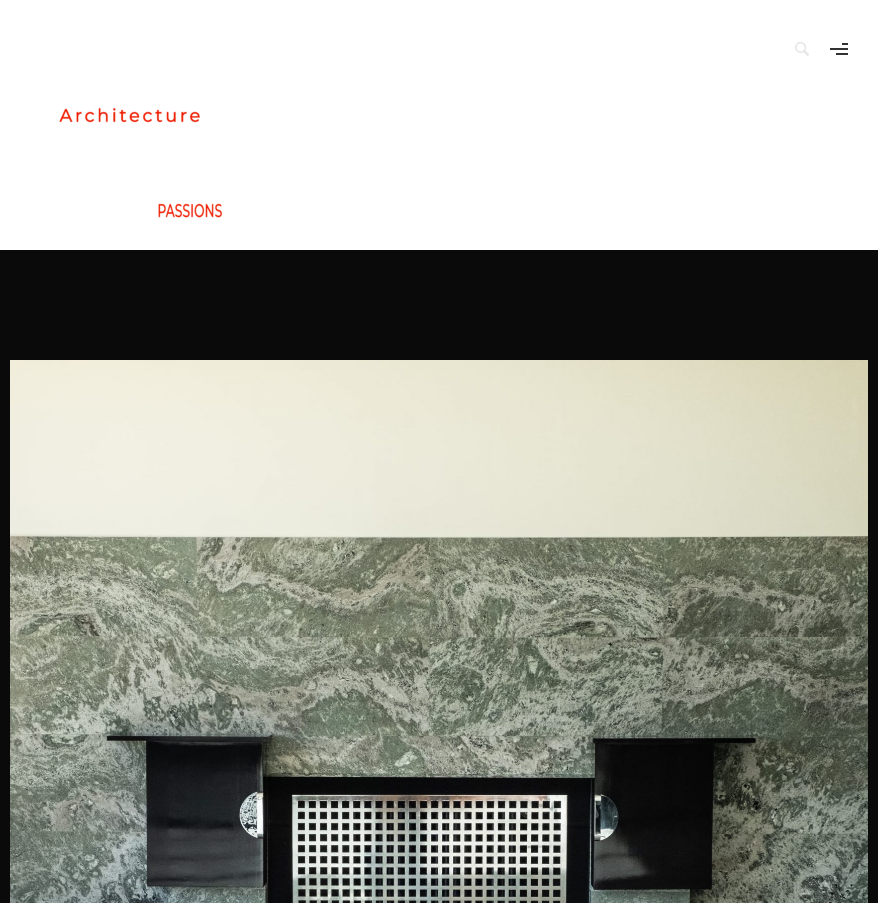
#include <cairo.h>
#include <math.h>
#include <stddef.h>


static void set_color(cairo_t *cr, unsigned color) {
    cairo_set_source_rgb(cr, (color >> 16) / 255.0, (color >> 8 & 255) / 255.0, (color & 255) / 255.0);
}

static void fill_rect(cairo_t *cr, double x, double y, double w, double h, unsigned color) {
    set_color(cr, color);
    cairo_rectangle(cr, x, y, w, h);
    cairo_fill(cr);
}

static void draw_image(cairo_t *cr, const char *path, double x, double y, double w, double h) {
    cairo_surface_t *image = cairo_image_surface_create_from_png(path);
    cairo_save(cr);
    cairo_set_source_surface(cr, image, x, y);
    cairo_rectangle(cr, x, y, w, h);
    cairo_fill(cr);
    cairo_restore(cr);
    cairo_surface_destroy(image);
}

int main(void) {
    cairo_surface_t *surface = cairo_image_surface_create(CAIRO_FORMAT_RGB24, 878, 903);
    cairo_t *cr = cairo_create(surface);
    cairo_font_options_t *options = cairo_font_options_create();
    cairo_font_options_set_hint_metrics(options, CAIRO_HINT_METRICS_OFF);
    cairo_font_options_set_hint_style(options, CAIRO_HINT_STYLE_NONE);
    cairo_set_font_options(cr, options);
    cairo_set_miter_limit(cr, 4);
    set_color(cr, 0xFFFFFF);
    cairo_paint(cr);
    draw_image(cr, "assets/img1.png", 795, 41, 14, 15);
    fill_rect(cr, 842, 43, 6, 2, 0x323232);
    fill_rect(cr, 830, 48, 18, 2, 0x323232);
    fill_rect(cr, 836, 53, 12, 2, 0x323232);
    draw_image(cr, "assets/img2.png", 59, 68, 164, 150);
    fill_rect(cr, 0, 250, 878, 653, 0x0A0A0A);
    draw_image(cr, "assets/img3.png", 10, 360, 858, 543);
    cairo_surface_write_to_png(surface, "output.png");
    cairo_font_options_destroy(options);
    cairo_destroy(cr);
    cairo_surface_destroy(surface);
    return 0;
}
